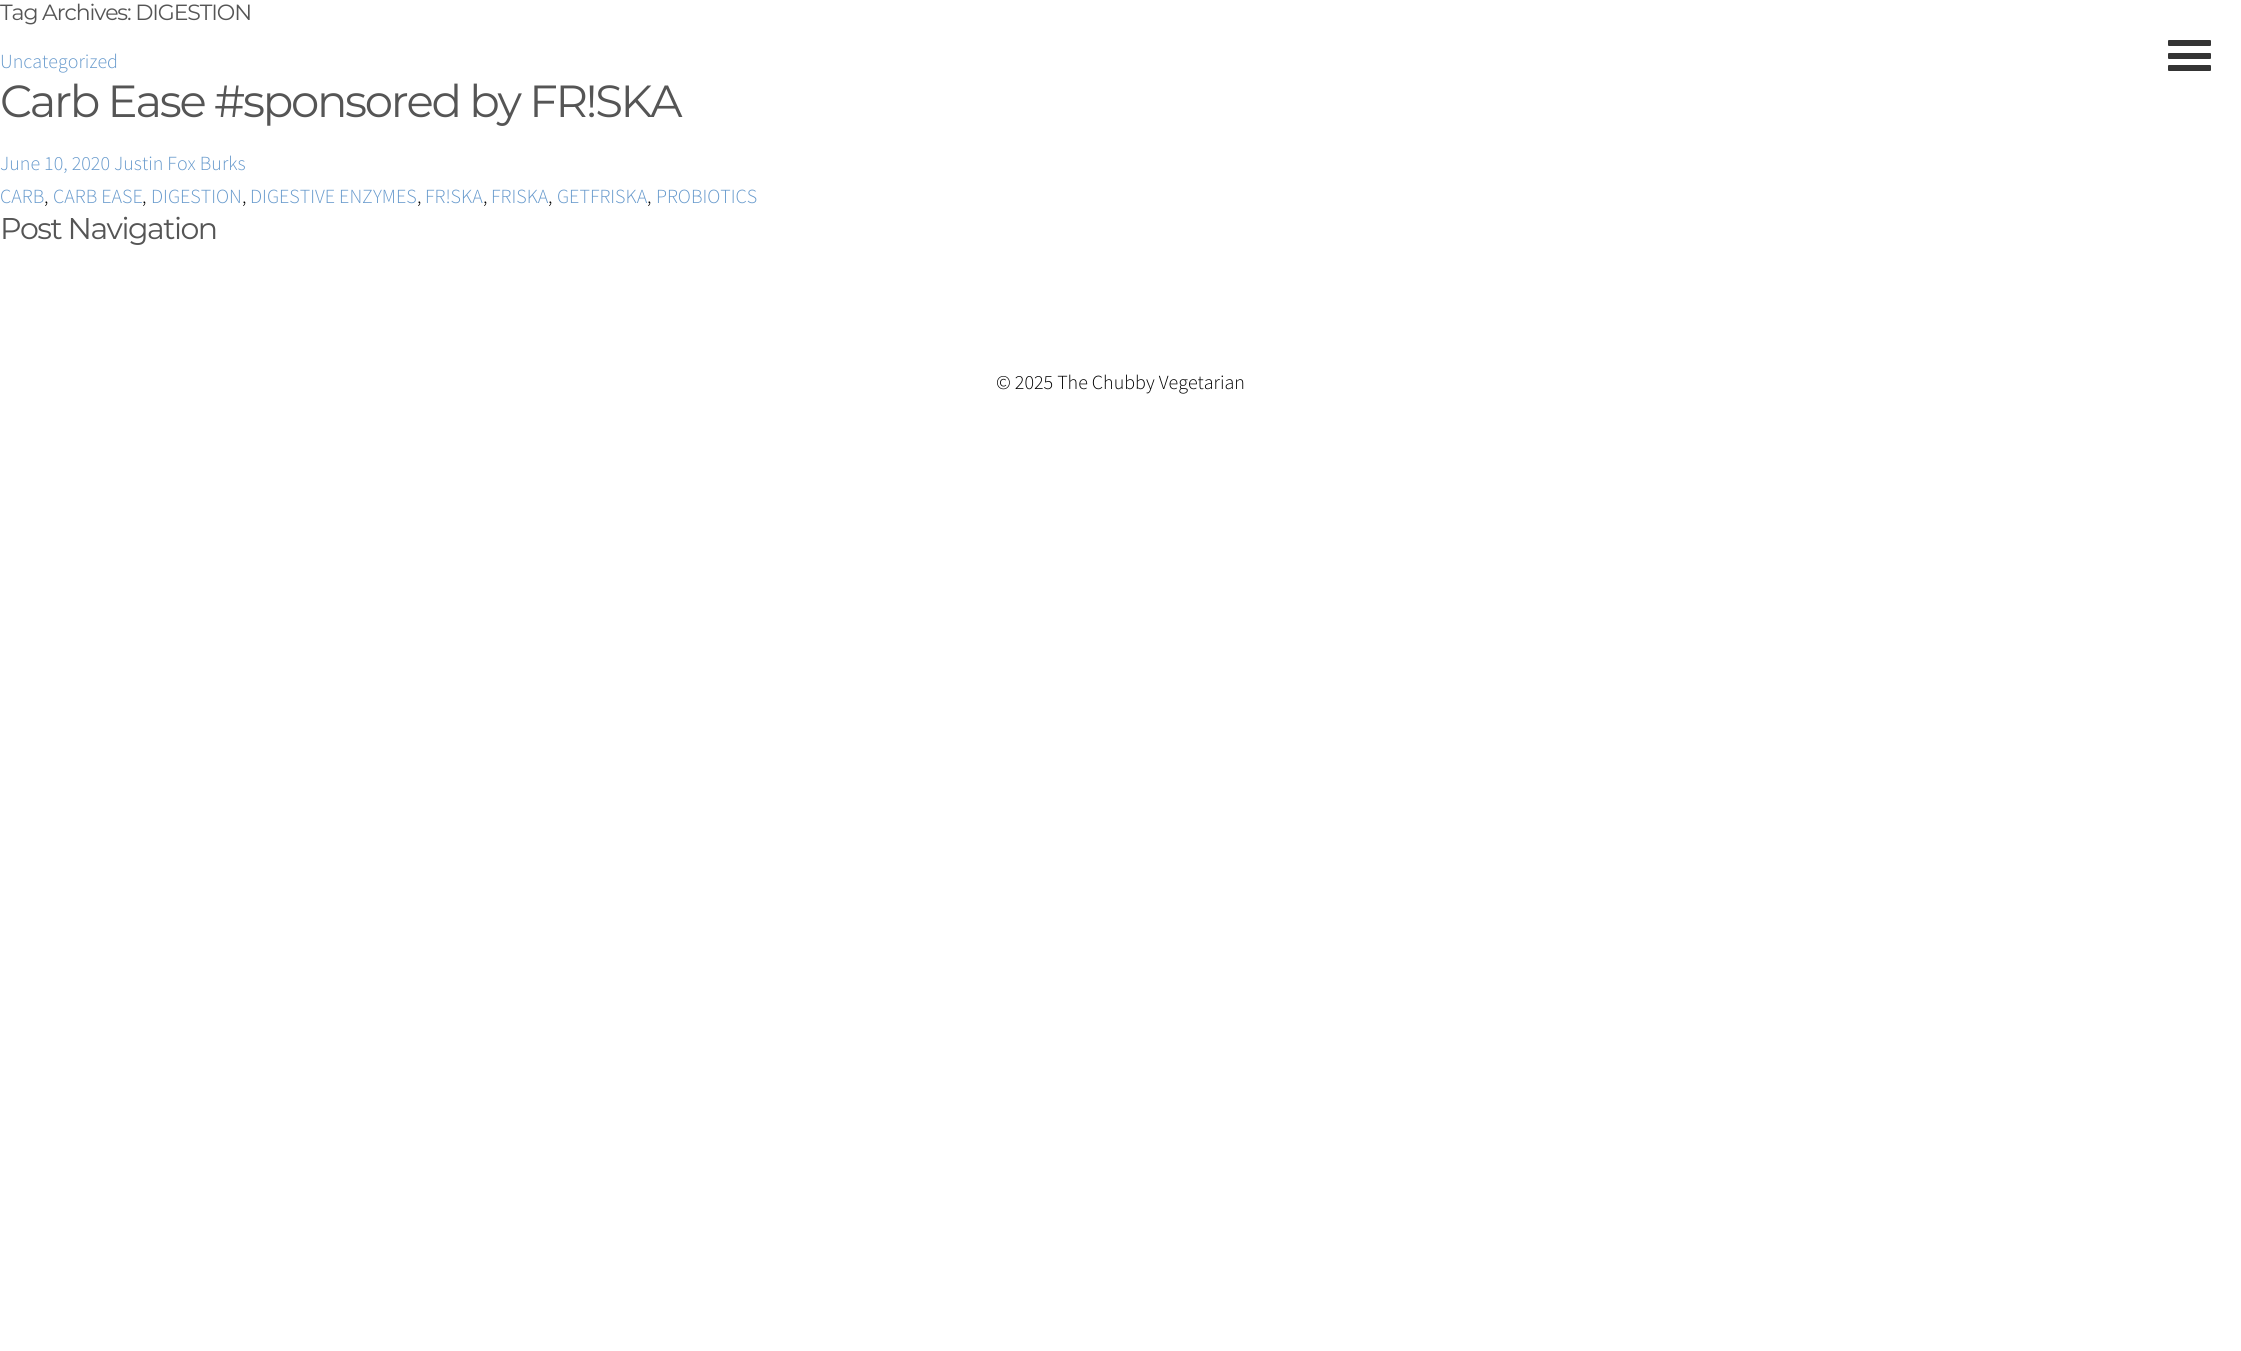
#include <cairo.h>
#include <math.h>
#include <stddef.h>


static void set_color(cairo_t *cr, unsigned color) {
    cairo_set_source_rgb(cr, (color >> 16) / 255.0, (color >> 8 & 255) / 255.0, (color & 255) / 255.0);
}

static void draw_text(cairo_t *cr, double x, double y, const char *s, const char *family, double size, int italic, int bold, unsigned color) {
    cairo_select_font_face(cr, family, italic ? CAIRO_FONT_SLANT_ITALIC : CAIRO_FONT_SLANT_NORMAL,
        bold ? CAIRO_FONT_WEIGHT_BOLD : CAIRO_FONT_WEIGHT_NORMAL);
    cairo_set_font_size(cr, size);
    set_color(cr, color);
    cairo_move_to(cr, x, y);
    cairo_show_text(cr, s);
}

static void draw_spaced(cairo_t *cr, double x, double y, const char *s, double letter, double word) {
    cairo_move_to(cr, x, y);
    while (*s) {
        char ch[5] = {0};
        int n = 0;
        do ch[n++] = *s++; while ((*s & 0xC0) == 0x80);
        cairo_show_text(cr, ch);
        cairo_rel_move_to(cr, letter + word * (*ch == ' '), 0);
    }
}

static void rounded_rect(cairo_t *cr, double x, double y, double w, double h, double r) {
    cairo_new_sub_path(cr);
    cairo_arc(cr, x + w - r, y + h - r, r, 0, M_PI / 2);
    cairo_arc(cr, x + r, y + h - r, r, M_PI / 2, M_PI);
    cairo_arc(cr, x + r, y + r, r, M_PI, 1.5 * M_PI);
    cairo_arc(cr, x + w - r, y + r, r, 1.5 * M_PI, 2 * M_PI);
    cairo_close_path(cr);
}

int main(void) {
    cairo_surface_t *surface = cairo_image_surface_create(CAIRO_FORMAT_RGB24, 2241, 1351);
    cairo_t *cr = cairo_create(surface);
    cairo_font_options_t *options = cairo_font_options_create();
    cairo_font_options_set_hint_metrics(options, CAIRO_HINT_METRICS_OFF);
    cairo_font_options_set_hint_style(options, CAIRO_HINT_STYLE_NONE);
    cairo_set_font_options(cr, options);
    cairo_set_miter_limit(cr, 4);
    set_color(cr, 0xFFFFFF);
    cairo_paint(cr);
    cairo_select_font_face(cr, "Montserrat", CAIRO_FONT_SLANT_NORMAL, CAIRO_FONT_WEIGHT_NORMAL);
    cairo_set_font_size(cr, 22);
    set_color(cr, 0x555555);
    draw_spaced(cr, 0, 20, "Tag Archives: DIGESTION", -1.1, 0);
    draw_text(cr, 0, 68, "Uncategorized", "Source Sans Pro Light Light", 20, 0, 0, 0x6699CC);
    cairo_select_font_face(cr, "Montserrat", CAIRO_FONT_SLANT_NORMAL, CAIRO_FONT_WEIGHT_NORMAL);
    cairo_set_font_size(cr, 45);
    set_color(cr, 0x555555);
    draw_spaced(cr, 0, 117, "Carb Ease #sponsored by FR!SKA", -2.25, 0);
    draw_text(cr, 0, 170, "June 10, 2020 Justin Fox Burks", "Source Sans Pro Light Light", 20, 0, 0, 0x6699CC);
    draw_text(cr, 0, 203, "CARB", "Source Sans Pro Light Light", 20, 0, 0, 0x6699CC);
    draw_text(cr, 44, 203, ",", "Source Sans Pro Light Light", 20, 0, 0, 0x000000);
    draw_text(cr, 53, 203, "CARB EASE", "Source Sans Pro Light Light", 20, 0, 0, 0x6699CC);
    draw_text(cr, 142, 203, ",", "Source Sans Pro Light Light", 20, 0, 0, 0x000000);
    draw_text(cr, 151, 203, "DIGESTION", "Source Sans Pro Light Light", 20, 0, 0, 0x6699CC);
    draw_text(cr, 242, 203, ",", "Source Sans Pro Light Light", 20, 0, 0, 0x000000);
    draw_text(cr, 250, 203, "DIGESTIVE ENZYMES", "Source Sans Pro Light Light", 20, 0, 0, 0x6699CC);
    draw_text(cr, 417, 203, ",", "Source Sans Pro Light Light", 20, 0, 0, 0x000000);
    draw_text(cr, 425, 203, "FR!SKA", "Source Sans Pro Light Light", 20, 0, 0, 0x6699CC);
    draw_text(cr, 483, 203, ",", "Source Sans Pro Light Light", 20, 0, 0, 0x000000);
    draw_text(cr, 491, 203, "FRISKA", "Source Sans Pro Light Light", 20, 0, 0, 0x6699CC);
    draw_text(cr, 548, 203, ",", "Source Sans Pro Light Light", 20, 0, 0, 0x000000);
    draw_text(cr, 557, 203, "GETFRISKA", "Source Sans Pro Light Light", 20, 0, 0, 0x6699CC);
    draw_text(cr, 647, 203, ",", "Source Sans Pro Light Light", 20, 0, 0, 0x000000);
    draw_text(cr, 656, 203, "PROBIOTICS", "Source Sans Pro Light Light", 20, 0, 0, 0x6699CC);
    cairo_select_font_face(cr, "Montserrat", CAIRO_FONT_SLANT_NORMAL, CAIRO_FONT_WEIGHT_NORMAL);
    cairo_set_font_size(cr, 30);
    set_color(cr, 0x555555);
    draw_spaced(cr, 0, 239, "Post Navigation", -1.5, 0);
    draw_text(cr, 996, 389, "© 2025 The Chubby Vegetarian", "Source Sans Pro Light Light", 20, 0, 0, 0x000000);
    set_color(cr, 0x343434);
    rounded_rect(cr, 2168, 53, 43, 6, 1);
    cairo_fill(cr);
    rounded_rect(cr, 2168, 40, 43, 6, 1);
    cairo_fill(cr);
    rounded_rect(cr, 2168, 65, 43, 6, 1);
    cairo_fill(cr);
    cairo_surface_write_to_png(surface, "output.png");
    cairo_font_options_destroy(options);
    cairo_destroy(cr);
    cairo_surface_destroy(surface);
    return 0;
}
